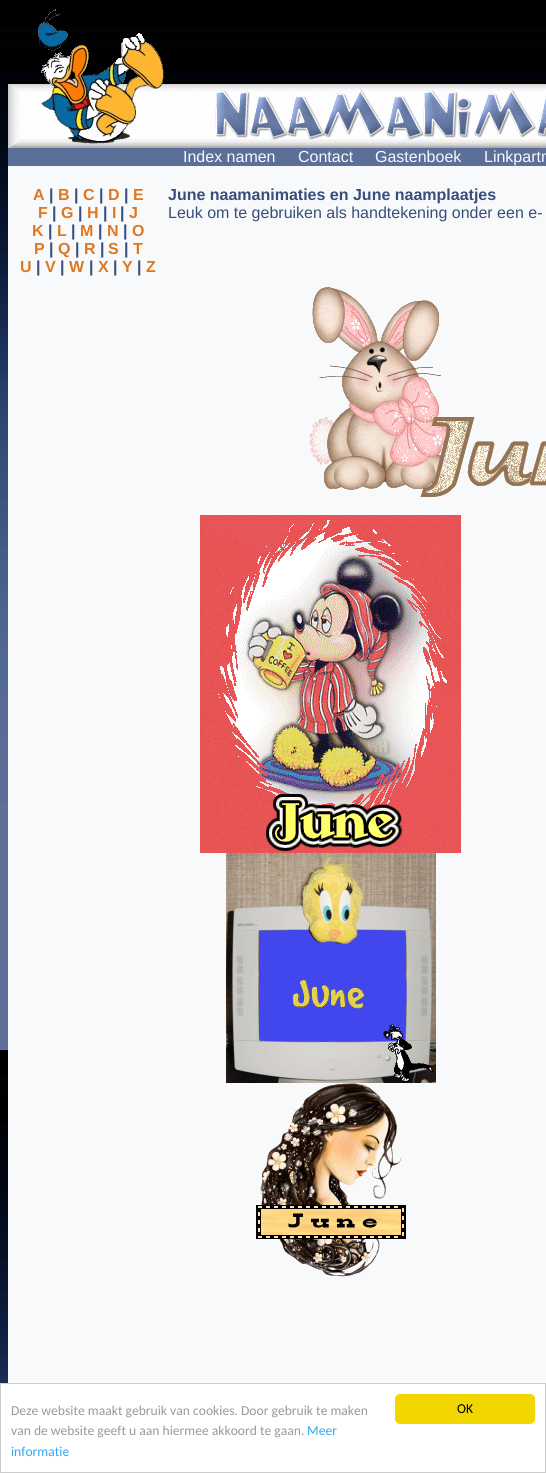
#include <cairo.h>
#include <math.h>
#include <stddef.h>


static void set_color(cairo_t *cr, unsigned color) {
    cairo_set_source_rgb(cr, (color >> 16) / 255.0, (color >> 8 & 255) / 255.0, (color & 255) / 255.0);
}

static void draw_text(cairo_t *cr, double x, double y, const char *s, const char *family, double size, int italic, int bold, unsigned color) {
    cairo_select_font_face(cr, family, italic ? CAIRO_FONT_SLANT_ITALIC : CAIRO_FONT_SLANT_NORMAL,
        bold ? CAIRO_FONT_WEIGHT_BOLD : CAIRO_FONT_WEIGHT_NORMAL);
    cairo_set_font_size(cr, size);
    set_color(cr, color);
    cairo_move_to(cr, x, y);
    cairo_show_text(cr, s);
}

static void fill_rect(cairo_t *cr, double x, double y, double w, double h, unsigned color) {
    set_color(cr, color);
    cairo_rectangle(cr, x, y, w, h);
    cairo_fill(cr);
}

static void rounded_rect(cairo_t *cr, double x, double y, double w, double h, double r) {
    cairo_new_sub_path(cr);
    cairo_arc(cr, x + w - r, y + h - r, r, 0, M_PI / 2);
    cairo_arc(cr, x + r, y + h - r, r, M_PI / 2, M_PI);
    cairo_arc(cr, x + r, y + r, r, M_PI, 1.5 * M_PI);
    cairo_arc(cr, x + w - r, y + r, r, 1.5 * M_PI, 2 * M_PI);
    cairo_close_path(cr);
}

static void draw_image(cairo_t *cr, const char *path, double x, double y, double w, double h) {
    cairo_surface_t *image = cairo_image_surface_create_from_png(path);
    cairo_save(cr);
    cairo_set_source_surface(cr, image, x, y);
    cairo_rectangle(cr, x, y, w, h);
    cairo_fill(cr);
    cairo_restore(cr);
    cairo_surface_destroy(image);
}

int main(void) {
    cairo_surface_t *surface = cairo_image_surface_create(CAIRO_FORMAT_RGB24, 546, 1473);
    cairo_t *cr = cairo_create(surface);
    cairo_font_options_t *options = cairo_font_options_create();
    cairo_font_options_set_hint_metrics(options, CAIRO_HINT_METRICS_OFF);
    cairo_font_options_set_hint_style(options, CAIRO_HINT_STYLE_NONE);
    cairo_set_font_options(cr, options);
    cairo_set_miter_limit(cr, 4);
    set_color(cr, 0xFFFFFF);
    cairo_paint(cr);
    draw_image(cr, "assets/img1.png", 0, 0, 546, 1383);
    draw_image(cr, "assets/img2.png", 8, 9, 538, 139);
    fill_rect(cr, 8, 148, 538, 18, 0x5C6F99);
    draw_text(cr, 183, 162, "Index namen", "Liberation Sans", 16, 0, 0, 0xF8F9FB);
    draw_text(cr, 298, 162, "Contact", "Liberation Sans", 16, 0, 0, 0xF8F9FB);
    draw_text(cr, 375, 162, "Gastenboek", "Liberation Sans", 16, 0, 0, 0xF8F9FB);
    draw_text(cr, 484, 162, "Linkpartn", "Liberation Sans", 16, 0, 0, 0xF8F9FB);
    fill_rect(cr, 8, 166, 538, 1217, 0xF8F9FB);
    draw_text(cr, 33, 200, "A", "Liberation Sans", 16, 0, 1, 0xE1771E);
    draw_text(cr, 49, 200, "|", "Liberation Sans", 16, 0, 1, 0x374E7A);
    draw_text(cr, 58, 200, "B", "Liberation Sans", 16, 0, 1, 0xE1771E);
    draw_text(cr, 74, 200, "|", "Liberation Sans", 16, 0, 1, 0x374E7A);
    draw_text(cr, 83, 200, "C", "Liberation Sans", 16, 0, 1, 0xE1771E);
    draw_text(cr, 99, 200, "|", "Liberation Sans", 16, 0, 1, 0x374E7A);
    draw_text(cr, 108, 200, "D", "Liberation Sans", 16, 0, 1, 0xE1771E);
    draw_text(cr, 124, 200, "|", "Liberation Sans", 16, 0, 1, 0x374E7A);
    draw_text(cr, 133, 200, "E", "Liberation Sans", 16, 0, 1, 0xE1771E);
    draw_text(cr, 38, 218, "F", "Liberation Sans", 16, 0, 1, 0xE1771E);
    draw_text(cr, 52, 218, "|", "Liberation Sans", 16, 0, 1, 0x374E7A);
    draw_text(cr, 61, 218, "G", "Liberation Sans", 16, 0, 1, 0xE1771E);
    draw_text(cr, 78, 218, "|", "Liberation Sans", 16, 0, 1, 0x374E7A);
    draw_text(cr, 87, 218, "H", "Liberation Sans", 16, 0, 1, 0xE1771E);
    draw_text(cr, 103, 218, "|", "Liberation Sans", 16, 0, 1, 0x374E7A);
    draw_text(cr, 112, 218, "I", "Liberation Sans", 16, 0, 1, 0xE1771E);
    draw_text(cr, 120, 218, "|", "Liberation Sans", 16, 0, 1, 0x374E7A);
    draw_text(cr, 129, 218, "J", "Liberation Sans", 16, 0, 1, 0xE1771E);
    draw_text(cr, 32, 236, "K", "Liberation Sans", 16, 0, 1, 0xE1771E);
    draw_text(cr, 48, 236, "|", "Liberation Sans", 16, 0, 1, 0x374E7A);
    draw_text(cr, 57, 236, "L", "Liberation Sans", 16, 0, 1, 0xE1771E);
    draw_text(cr, 71, 236, "|", "Liberation Sans", 16, 0, 1, 0x374E7A);
    draw_text(cr, 80, 236, "M", "Liberation Sans", 16, 0, 1, 0xE1771E);
    draw_text(cr, 98, 236, "|", "Liberation Sans", 16, 0, 1, 0x374E7A);
    draw_text(cr, 107, 236, "N", "Liberation Sans", 16, 0, 1, 0xE1771E);
    draw_text(cr, 123, 236, "|", "Liberation Sans", 16, 0, 1, 0x374E7A);
    draw_text(cr, 132, 236, "O", "Liberation Sans", 16, 0, 1, 0xE1771E);
    draw_text(cr, 34, 254, "P", "Liberation Sans", 16, 0, 1, 0xE1771E);
    draw_text(cr, 49, 254, "|", "Liberation Sans", 16, 0, 1, 0x374E7A);
    draw_text(cr, 58, 254, "Q", "Liberation Sans", 16, 0, 1, 0xE1771E);
    draw_text(cr, 75, 254, "|", "Liberation Sans", 16, 0, 1, 0x374E7A);
    draw_text(cr, 84, 254, "R", "Liberation Sans", 16, 0, 1, 0xE1771E);
    draw_text(cr, 100, 254, "|", "Liberation Sans", 16, 0, 1, 0x374E7A);
    draw_text(cr, 108, 254, "S", "Liberation Sans", 16, 0, 1, 0xE1771E);
    draw_text(cr, 124, 254, "|", "Liberation Sans", 16, 0, 1, 0x374E7A);
    draw_text(cr, 133, 254, "T", "Liberation Sans", 16, 0, 1, 0xE1771E);
    draw_text(cr, 20, 272, "U", "Liberation Sans", 16, 0, 1, 0xE1771E);
    draw_text(cr, 36, 272, "|", "Liberation Sans", 16, 0, 1, 0x374E7A);
    draw_text(cr, 45, 272, "V", "Liberation Sans", 16, 0, 1, 0xE1771E);
    draw_text(cr, 60, 272, "|", "Liberation Sans", 16, 0, 1, 0x374E7A);
    draw_text(cr, 69, 272, "W", "Liberation Sans", 16, 0, 1, 0xE1771E);
    draw_text(cr, 89, 272, "|", "Liberation Sans", 16, 0, 1, 0x374E7A);
    draw_text(cr, 98, 272, "X", "Liberation Sans", 16, 0, 1, 0xE1771E);
    draw_text(cr, 113, 272, "|", "Liberation Sans", 16, 0, 1, 0x374E7A);
    draw_text(cr, 122, 272, "Y", "Liberation Sans", 16, 0, 1, 0xE1771E);
    draw_text(cr, 137, 272, "|", "Liberation Sans", 16, 0, 1, 0x374E7A);
    draw_text(cr, 146, 272, "Z", "Liberation Sans", 16, 0, 1, 0xE1771E);
    draw_text(cr, 168, 200, "June naamanimaties en June naamplaatjes", "Liberation Sans", 16, 0, 1, 0x374E7A);
    draw_text(cr, 168, 218, "Leuk om te gebruiken als handtekening onder een e-", "Liberation Sans", 16, 0, 0, 0x374E7A);
    draw_image(cr, "assets/img3.png", 309, 287, 237, 210);
    draw_image(cr, "assets/img4.png", 200, 515, 261, 338);
    draw_image(cr, "assets/img5.png", 226, 853, 210, 230);
    draw_image(cr, "assets/img6.png", 256, 1083, 150, 194);
    cairo_rectangle(cr, 0.5, 1383.5, 545, 89);
    set_color(cr, 0xCCCCCC);
    cairo_set_line_width(cr, 1);
    cairo_stroke(cr);
    draw_text(cr, 11, 1415, "Deze website maakt gebruik van cookies. Door gebruik te maken", "Carlito", 13.6, 0, 0, 0x999999);
    draw_text(cr, 11, 1435, "van de website geeft u aan hiermee akkoord te gaan.", "Carlito", 13.6, 0, 0, 0x999999);
    draw_text(cr, 307, 1435, "Meer", "Carlito", 13.6, 0, 0, 0x31A8F0);
    draw_text(cr, 11, 1456, "informatie", "Carlito", 13.6, 0, 0, 0x31A8F0);
    set_color(cr, 0xF1D600);
    rounded_rect(cr, 395, 1394, 140, 30, 5);
    cairo_fill(cr);
    draw_text(cr, 457, 1413, "OK", "Carlito", 13.6, 0, 0, 0x000000);
    cairo_surface_write_to_png(surface, "output.png");
    cairo_font_options_destroy(options);
    cairo_destroy(cr);
    cairo_surface_destroy(surface);
    return 0;
}
